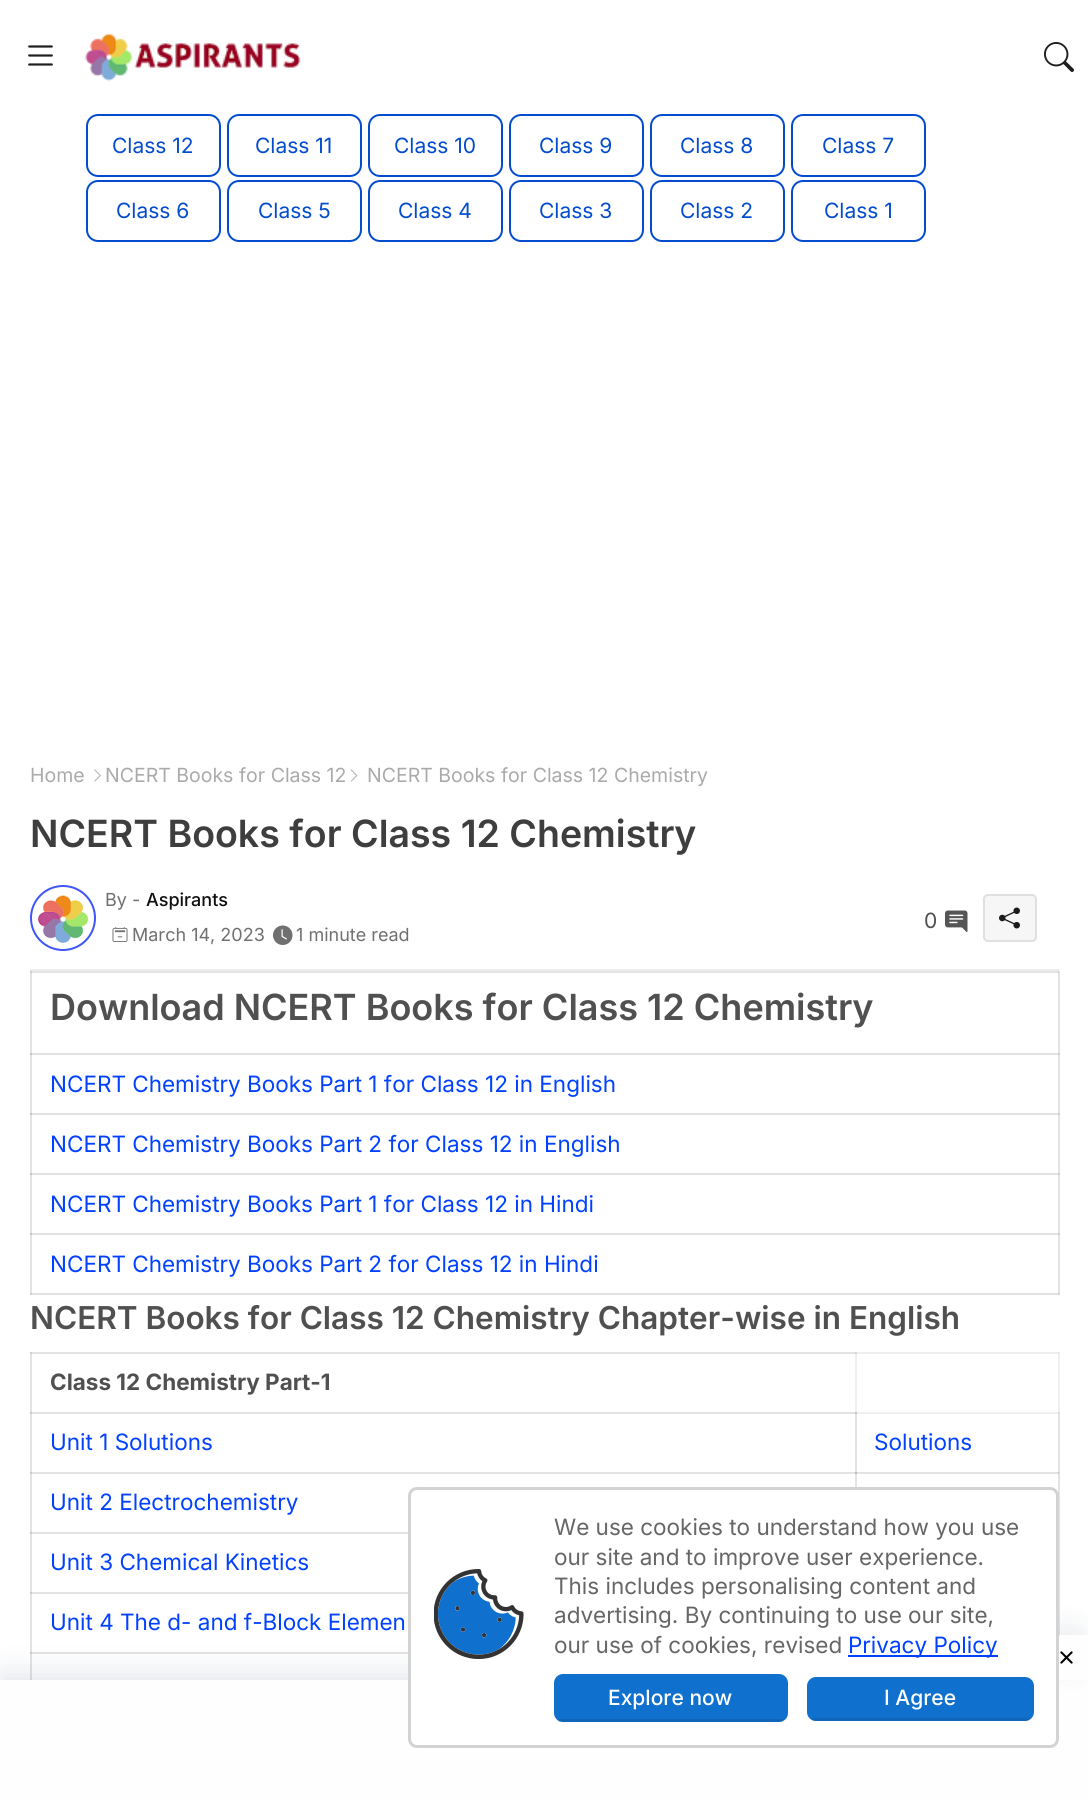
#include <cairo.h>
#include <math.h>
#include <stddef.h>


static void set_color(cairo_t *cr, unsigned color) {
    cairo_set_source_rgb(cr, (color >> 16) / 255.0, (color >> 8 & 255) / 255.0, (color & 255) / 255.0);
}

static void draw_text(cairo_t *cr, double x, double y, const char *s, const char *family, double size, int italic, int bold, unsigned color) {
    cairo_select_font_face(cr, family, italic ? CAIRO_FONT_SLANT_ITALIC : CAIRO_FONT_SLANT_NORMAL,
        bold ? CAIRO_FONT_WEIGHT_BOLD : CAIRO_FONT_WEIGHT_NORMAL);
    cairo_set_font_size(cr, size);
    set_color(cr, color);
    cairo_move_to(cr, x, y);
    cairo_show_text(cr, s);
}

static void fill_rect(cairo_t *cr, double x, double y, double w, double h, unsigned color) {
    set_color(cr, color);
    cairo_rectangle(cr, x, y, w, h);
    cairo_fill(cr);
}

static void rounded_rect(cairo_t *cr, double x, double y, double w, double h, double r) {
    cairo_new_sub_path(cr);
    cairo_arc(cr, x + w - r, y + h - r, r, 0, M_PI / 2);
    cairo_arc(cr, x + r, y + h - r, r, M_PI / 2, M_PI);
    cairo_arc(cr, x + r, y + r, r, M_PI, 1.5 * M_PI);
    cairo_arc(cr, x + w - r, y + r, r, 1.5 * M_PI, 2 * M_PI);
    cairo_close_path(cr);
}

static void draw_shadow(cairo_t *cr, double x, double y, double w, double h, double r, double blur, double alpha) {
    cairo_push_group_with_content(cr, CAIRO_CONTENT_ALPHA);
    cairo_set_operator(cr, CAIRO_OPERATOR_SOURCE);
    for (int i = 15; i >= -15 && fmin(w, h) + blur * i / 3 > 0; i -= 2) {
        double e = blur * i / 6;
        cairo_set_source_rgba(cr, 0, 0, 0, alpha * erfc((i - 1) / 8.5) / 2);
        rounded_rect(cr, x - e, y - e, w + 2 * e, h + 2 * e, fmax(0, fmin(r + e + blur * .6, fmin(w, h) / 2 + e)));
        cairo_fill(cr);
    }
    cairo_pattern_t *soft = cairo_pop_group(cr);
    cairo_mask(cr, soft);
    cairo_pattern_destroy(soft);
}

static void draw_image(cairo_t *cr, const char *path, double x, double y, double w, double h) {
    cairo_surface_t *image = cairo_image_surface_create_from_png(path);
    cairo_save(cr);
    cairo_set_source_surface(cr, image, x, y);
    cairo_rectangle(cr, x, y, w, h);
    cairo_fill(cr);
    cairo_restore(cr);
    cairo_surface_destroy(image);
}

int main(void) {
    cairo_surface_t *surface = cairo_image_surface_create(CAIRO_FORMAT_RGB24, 1088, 1799);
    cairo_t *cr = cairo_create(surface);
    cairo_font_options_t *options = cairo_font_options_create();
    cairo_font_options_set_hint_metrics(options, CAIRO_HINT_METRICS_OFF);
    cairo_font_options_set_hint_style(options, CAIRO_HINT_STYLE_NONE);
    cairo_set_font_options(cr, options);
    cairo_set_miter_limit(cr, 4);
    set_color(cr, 0xFFFFFF);
    cairo_paint(cr);
    fill_rect(cr, 855, 1352, 2, 61, 0xF0F0F0);
    fill_rect(cr, 30, 1412, 827, 2, 0xE3E3E3);
    fill_rect(cr, 855, 1412, 2, 61, 0xE3E3E3);
    fill_rect(cr, 855, 1412, 204, 2, 0xF0F0F0);
    fill_rect(cr, 855, 1413, 2, 1, 0xC7C7C7);
    fill_rect(cr, 855, 1412, 2, 1, 0xC0C0C0);
    fill_rect(cr, 30, 1472, 827, 2, 0xE3E3E3);
    fill_rect(cr, 855, 1472, 2, 15, 0xE3E3E3);
    fill_rect(cr, 855, 1472, 204, 2, 0xE3E3E3);
    fill_rect(cr, 855, 1473, 2, 1, 0xC0C0C0);
    fill_rect(cr, 855, 1472, 2, 1, 0xB5B5B5);
    fill_rect(cr, 30, 1532, 378, 2, 0xE3E3E3);
    fill_rect(cr, 30, 1592, 378, 2, 0xE3E3E3);
    fill_rect(cr, 30, 1652, 378, 2, 0xE3E3E3);
    fill_rect(cr, 30, 1352, 2, 328, 0xE3E3E3);
    fill_rect(cr, 30, 1413, 2, 1, 0xCFCFCF);
    fill_rect(cr, 30, 1412, 2, 1, 0xC7C7C7);
    fill_rect(cr, 30, 1473, 2, 1, 0xCFCFCF);
    fill_rect(cr, 30, 1472, 2, 1, 0xC7C7C7);
    fill_rect(cr, 30, 1533, 2, 1, 0xCFCFCF);
    fill_rect(cr, 30, 1532, 2, 1, 0xC7C7C7);
    fill_rect(cr, 30, 1593, 2, 1, 0xCFCFCF);
    fill_rect(cr, 30, 1592, 2, 1, 0xC7C7C7);
    fill_rect(cr, 30, 1653, 2, 1, 0xCFCFCF);
    fill_rect(cr, 30, 1652, 2, 1, 0xC7C7C7);
    fill_rect(cr, 1058, 1352, 2, 60, 0xF0F0F0);
    fill_rect(cr, 1058, 1412, 2, 121, 0xE3E3E3);
    fill_rect(cr, 1058, 1412, 1, 2, 0xD8D8D8);
    fill_rect(cr, 1058, 1472, 2, 1, 0xD8D8D8);
    fill_rect(cr, 1058, 1472, 1, 2, 0xCFCFCF);
    fill_rect(cr, 1058, 1472, 1, 1, 0xC7C7C7);
    fill_rect(cr, 1059, 1532, 1, 104, 0xE3E3E3);
    fill_rect(cr, 1058, 1532, 2, 1, 0xD8D8D8);
    fill_rect(cr, 1058, 1592, 2, 1, 0xD8D8D8);
    fill_rect(cr, 30, 1053, 1029, 2, 0xE3E3E3);
    fill_rect(cr, 30, 1113, 1029, 2, 0xE3E3E3);
    fill_rect(cr, 30, 1173, 1029, 2, 0xE3E3E3);
    fill_rect(cr, 30, 1233, 1029, 2, 0xE3E3E3);
    fill_rect(cr, 30, 971, 2, 324, 0xE3E3E3);
    fill_rect(cr, 30, 1053, 2, 2, 0xC7C7C7);
    fill_rect(cr, 30, 1113, 2, 2, 0xC7C7C7);
    fill_rect(cr, 30, 1173, 2, 2, 0xC7C7C7);
    fill_rect(cr, 30, 1233, 2, 2, 0xC7C7C7);
    fill_rect(cr, 30, 1293, 1029, 2, 0xE3E3E3);
    fill_rect(cr, 30, 1293, 2, 2, 0xCFCFCF);
    fill_rect(cr, 1058, 971, 2, 324, 0xE3E3E3);
    fill_rect(cr, 1058, 1053, 2, 2, 0xD8D8D8);
    fill_rect(cr, 1058, 1053, 1, 2, 0xC7C7C7);
    fill_rect(cr, 1058, 1113, 2, 2, 0xD8D8D8);
    fill_rect(cr, 1058, 1113, 1, 2, 0xC7C7C7);
    fill_rect(cr, 1058, 1173, 2, 2, 0xD8D8D8);
    fill_rect(cr, 1058, 1173, 1, 2, 0xC7C7C7);
    fill_rect(cr, 1058, 1233, 2, 2, 0xD8D8D8);
    fill_rect(cr, 1058, 1233, 1, 2, 0xC7C7C7);
    fill_rect(cr, 1058, 1293, 1, 2, 0xCFCFCF);
    draw_image(cr, "assets/img1.png", 28, 45, 25, 21);
    draw_image(cr, "assets/img2.png", 85, 33, 216, 49);
    draw_image(cr, "assets/img3.png", 1044, 42, 30, 30);
    rounded_rect(cr, 87, 115, 133, 61, 11);
    set_color(cr, 0x034CCE);
    cairo_stroke(cr);
    draw_text(cr, 112, 153, "Class 12", "Inter", 21, 0, 0, 0x034CCE);
    rounded_rect(cr, 228, 115, 133, 61, 11);
    cairo_stroke(cr);
    draw_text(cr, 255, 153, "Class 11", "Inter", 21, 0, 0, 0x034CCE);
    rounded_rect(cr, 369, 115, 133, 61, 11);
    cairo_stroke(cr);
    draw_text(cr, 394, 153, "Class 10", "Inter", 21, 0, 0, 0x034CCE);
    rounded_rect(cr, 510, 115, 133, 61, 11);
    cairo_stroke(cr);
    draw_text(cr, 539, 153, "Class 9", "Inter", 21, 0, 0, 0x034CCE);
    rounded_rect(cr, 651, 115, 133, 61, 11);
    cairo_stroke(cr);
    draw_text(cr, 680, 153, "Class 8", "Inter", 21, 0, 0, 0x034CCE);
    rounded_rect(cr, 792, 115, 133, 61, 11);
    cairo_stroke(cr);
    draw_text(cr, 822, 153, "Class 7", "Inter", 21, 0, 0, 0x034CCE);
    rounded_rect(cr, 87, 181, 133, 60, 11);
    cairo_stroke(cr);
    draw_text(cr, 116, 218, "Class 6", "Inter", 21, 0, 0, 0x034CCE);
    rounded_rect(cr, 228, 181, 133, 60, 11);
    cairo_stroke(cr);
    draw_text(cr, 258, 218, "Class 5", "Inter", 21, 0, 0, 0x034CCE);
    rounded_rect(cr, 369, 181, 133, 60, 11);
    cairo_stroke(cr);
    draw_text(cr, 398, 218, "Class 4", "Inter", 21, 0, 0, 0x034CCE);
    rounded_rect(cr, 510, 181, 133, 60, 11);
    cairo_stroke(cr);
    draw_text(cr, 539, 218, "Class 3", "Inter", 21, 0, 0, 0x034CCE);
    rounded_rect(cr, 651, 181, 133, 60, 11);
    cairo_stroke(cr);
    draw_text(cr, 680, 218, "Class 2", "Inter", 21, 0, 0, 0x034CCE);
    rounded_rect(cr, 792, 181, 133, 60, 11);
    cairo_stroke(cr);
    draw_text(cr, 824, 218, "Class 1", "Inter", 21, 0, 0, 0x034CCE);
    draw_text(cr, 30, 782, "Home", "Inter", 19.5, 0, 0, 0xAAAAAA);
    draw_image(cr, "assets/img4.png", 94, 769, 7, 13);
    draw_text(cr, 105, 782, "NCERT Books for Class 12", "Inter", 19.5, 0, 0, 0xAAAAAA);
    draw_image(cr, "assets/img5.png", 350, 769, 8, 13);
    draw_text(cr, 367, 782, "NCERT Books for Class 12 Chemistry", "Inter", 19.5, 0, 0, 0xAAAAAA);
    draw_text(cr, 30, 847, "NCERT Books for Class 12 Chemistry", "Inter SemiBold", 37.5, 0, 0, 0x3E3E3E);
    fill_rect(cr, 30, 969, 1029, 2, 0xECECEC);
    cairo_new_path(cr);
    cairo_arc(cr, 63, 918, 32, 0, 2 * M_PI);
    set_color(cr, 0x3E55FA);
    cairo_stroke(cr);
    draw_image(cr, "assets/img6.png", 37, 895, 52, 48);
    draw_text(cr, 105, 906, "By -", "Inter", 18, 0, 0, 0x707070);
    draw_text(cr, 146, 906, "Aspirants", "Inter Medium", 18, 0, 0, 0x101010);
    draw_image(cr, "assets/img7.png", 112, 927, 16, 15);
    draw_text(cr, 132, 941, "March 14, 2023", "Inter", 18, 0, 0, 0x707070);
    draw_image(cr, "assets/img8.png", 273, 925, 20, 20);
    draw_text(cr, 296, 941, "1 minute read", "Inter", 18, 0, 0, 0x707070);
    draw_text(cr, 924, 928, "0", "Inter", 21, 0, 0, 0x505050);
    draw_image(cr, "assets/img9.png", 945, 910, 23, 22);
    set_color(cr, 0xF6F6F6);
    rounded_rect(cr, 983, 894, 54, 48, 5);
    cairo_fill(cr);
    rounded_rect(cr, 984, 895, 52, 46, 4);
    cairo_set_source_rgba(cr, 0.506, 0.506, 0.506, 0.19);
    cairo_stroke(cr);
    draw_image(cr, "assets/img10.png", 999, 907, 21, 22);
    fill_rect(cr, 30, 971, 1029, 2, 0xE3E3E3);
    fill_rect(cr, 30, 971, 2, 2, 0xCFCFCF);
    fill_rect(cr, 1058, 971, 1, 2, 0xCFCFCF);
    draw_text(cr, 50, 1020, "Download NCERT Books for Class 12 Chemistry", "Inter SemiBold", 36, 0, 0, 0x505050);
    draw_text(cr, 50, 1092, "NCERT Chemistry Books Part 1 for Class 12 in English", "Inter", 22.5, 0, 0, 0x0241FF);
    draw_text(cr, 50, 1152, "NCERT Chemistry Books Part 2 for Class 12 in English", "Inter", 22.5, 0, 0, 0x0241FF);
    draw_text(cr, 50, 1212, "NCERT Chemistry Books Part 1 for Class 12 in Hindi", "Inter", 22.5, 0, 0, 0x0241FF);
    draw_text(cr, 50, 1272, "NCERT Chemistry Books Part 2 for Class 12 in Hindi", "Inter", 22.5, 0, 0, 0x0241FF);
    draw_text(cr, 30, 1329, "NCERT Books for Class 12 Chemistry Chapter-wise in English", "Inter SemiBold", 31.5, 0, 0, 0x505050);
    fill_rect(cr, 857, 1352, 202, 2, 0xF0F0F0);
    fill_rect(cr, 30, 1352, 827, 2, 0xE3E3E3);
    fill_rect(cr, 855, 1352, 2, 2, 0xD8D8D8);
    fill_rect(cr, 30, 1352, 2, 2, 0xCFCFCF);
    fill_rect(cr, 1058, 1352, 1, 2, 0xE3E3E3);
    draw_text(cr, 50, 1390, "Class 12 Chemistry Part-1", "Inter", 22.5, 0, 1, 0x505050);
    draw_text(cr, 50, 1450, "Unit 1 Solutions", "Inter", 22.5, 0, 0, 0x0241FF);
    draw_text(cr, 874, 1450, "Solutions", "Inter", 22.5, 0, 0, 0x0241FF);
    draw_text(cr, 50, 1510, "Unit 2 Electrochemistry", "Inter", 22.5, 0, 0, 0x0241FF);
    draw_text(cr, 50, 1570, "Unit 3 Chemical Kinetics", "Inter", 22.5, 0, 0, 0x0241FF);
    draw_text(cr, 50, 1630, "Unit 4 The d- and f-Block Elemen", "Inter", 22.5, 0, 0, 0x0241FF);
    set_color(cr, 0x09204C);
    draw_shadow(cr, 0, 1671, 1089, 120, 0, 13.5, 0.1);
    fill_rect(cr, 0, 1680, 1088, 119, 0xFEFEFE);
    set_color(cr, 0x09204C);
    draw_shadow(cr, 1044, 1626, 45, 45, 18, 13.5, 0.08);
    set_color(cr, 0xFEFEFE);
    cairo_new_path(cr);
    cairo_move_to(cr, 1062, 1635);
    cairo_line_to(cr, 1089, 1635);
    cairo_line_to(cr, 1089, 1680);
    cairo_line_to(cr, 1044, 1680);
    cairo_line_to(cr, 1044, 1653);
    cairo_curve_to(cr, 1044, 1643, 1052, 1635, 1062, 1635);
    cairo_close_path(cr);
    cairo_fill(cr);
    set_color(cr, 0xFFFFFF);
    rounded_rect(cr, 409.5, 1488.5, 648, 258, 7.5);
    cairo_fill_preserve(cr);
    set_color(cr, 0xD3D3D3);
    cairo_set_line_width(cr, 3);
    cairo_stroke(cr);
    draw_image(cr, "assets/img11.png", 434, 1569, 90, 90);
    draw_text(cr, 554, 1535, "We use cookies to understand how you use", "Inter", 22.5, 0, 0, 0x666666);
    draw_text(cr, 554, 1565, "our site and to improve user experience.", "Inter", 22.5, 0, 0, 0x666666);
    draw_text(cr, 554, 1594, "This includes personalising content and", "Inter", 22.5, 0, 0, 0x666666);
    draw_text(cr, 554, 1623, "advertising. By continuing to use our site,", "Inter", 22.5, 0, 0, 0x666666);
    draw_text(cr, 554, 1653, "our use of cookies, revised", "Inter", 22.5, 0, 0, 0x666666);
    fill_rect(cr, 848, 1655, 150, 2, 0x0241FF);
    draw_text(cr, 848, 1653, "Privacy Policy", "Inter", 22.5, 0, 0, 0x0241FF);
    set_color(cr, 0x1070CE);
    rounded_rect(cr, 554, 1674, 234, 48, 9);
    cairo_fill(cr);
    cairo_set_source_rgba(cr, 0, 0, 0, 0.1);
    cairo_rectangle(cr, 558, 1719, 225, 3);
    cairo_fill(cr);
    draw_text(cr, 608, 1705, "Explore now", "Inter Medium", 21, 0, 0, 0xFFFFFF);
    set_color(cr, 0x1070CE);
    rounded_rect(cr, 807, 1677, 227, 44, 9);
    cairo_fill(cr);
    cairo_set_source_rgba(cr, 0, 0, 0, 0.1);
    cairo_rectangle(cr, 812, 1718, 217, 3);
    cairo_fill(cr);
    draw_text(cr, 884, 1705, "I Agree", "Inter Medium", 21, 0, 0, 0xFFFFFF);
    draw_image(cr, "assets/img12.png", 1060, 1651, 13, 13);
    cairo_surface_write_to_png(surface, "output.png");
    cairo_font_options_destroy(options);
    cairo_destroy(cr);
    cairo_surface_destroy(surface);
    return 0;
}
